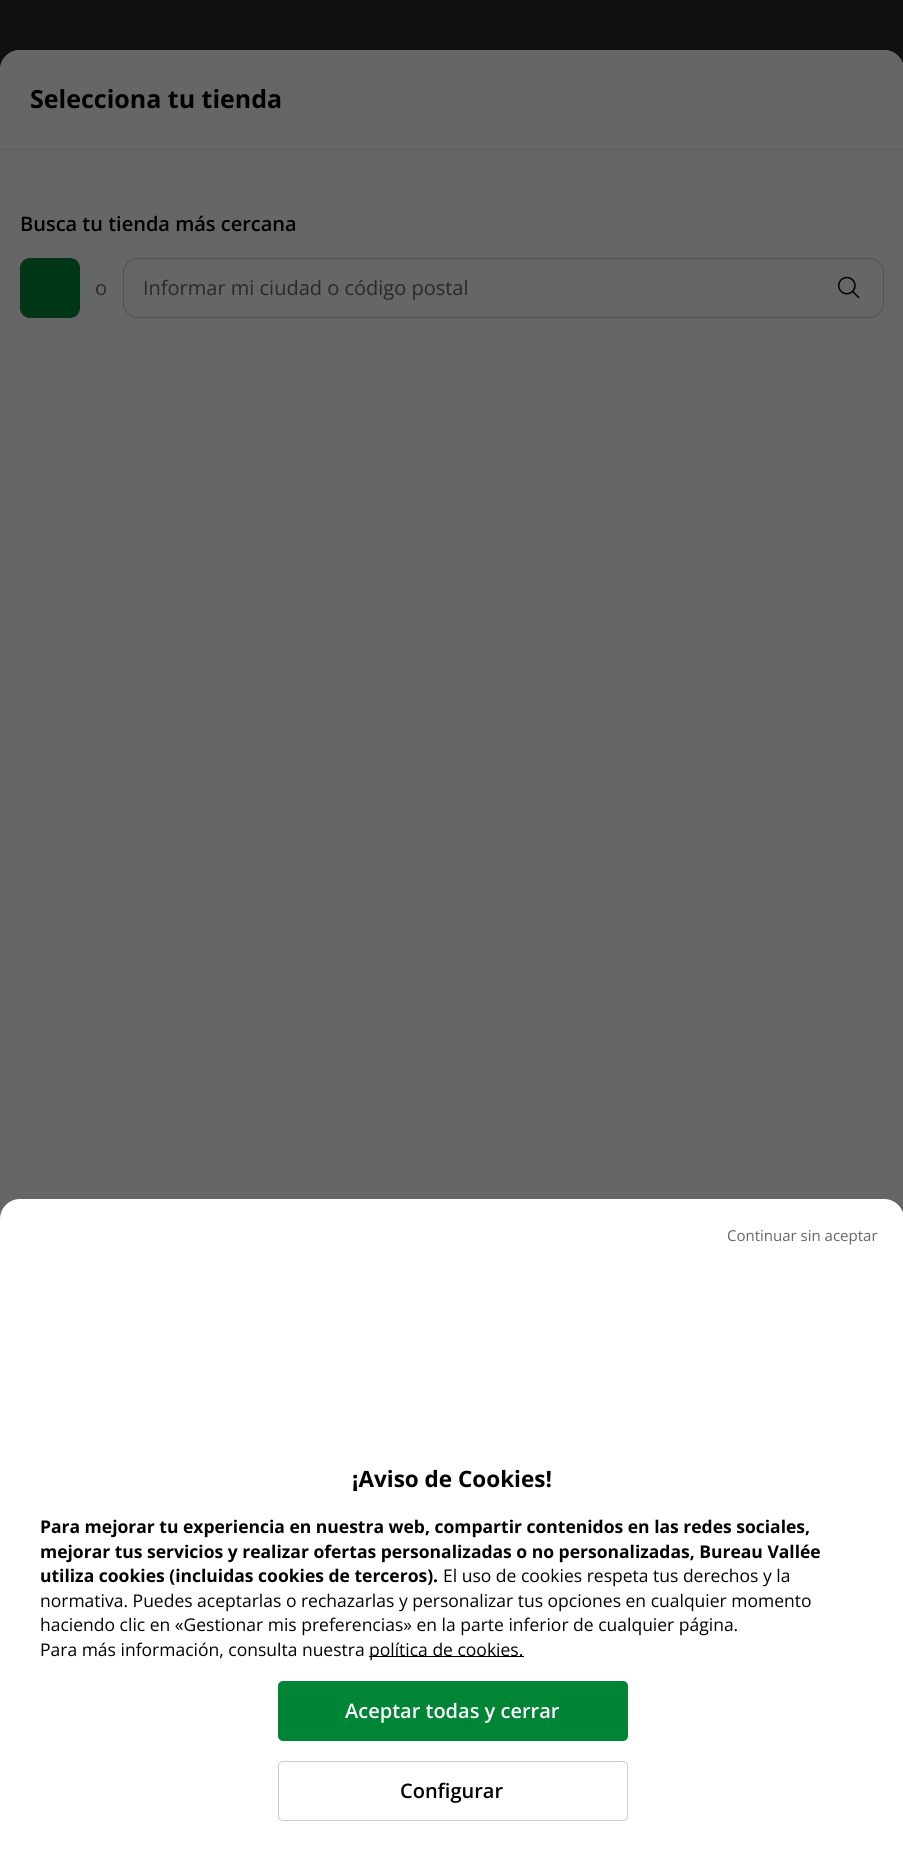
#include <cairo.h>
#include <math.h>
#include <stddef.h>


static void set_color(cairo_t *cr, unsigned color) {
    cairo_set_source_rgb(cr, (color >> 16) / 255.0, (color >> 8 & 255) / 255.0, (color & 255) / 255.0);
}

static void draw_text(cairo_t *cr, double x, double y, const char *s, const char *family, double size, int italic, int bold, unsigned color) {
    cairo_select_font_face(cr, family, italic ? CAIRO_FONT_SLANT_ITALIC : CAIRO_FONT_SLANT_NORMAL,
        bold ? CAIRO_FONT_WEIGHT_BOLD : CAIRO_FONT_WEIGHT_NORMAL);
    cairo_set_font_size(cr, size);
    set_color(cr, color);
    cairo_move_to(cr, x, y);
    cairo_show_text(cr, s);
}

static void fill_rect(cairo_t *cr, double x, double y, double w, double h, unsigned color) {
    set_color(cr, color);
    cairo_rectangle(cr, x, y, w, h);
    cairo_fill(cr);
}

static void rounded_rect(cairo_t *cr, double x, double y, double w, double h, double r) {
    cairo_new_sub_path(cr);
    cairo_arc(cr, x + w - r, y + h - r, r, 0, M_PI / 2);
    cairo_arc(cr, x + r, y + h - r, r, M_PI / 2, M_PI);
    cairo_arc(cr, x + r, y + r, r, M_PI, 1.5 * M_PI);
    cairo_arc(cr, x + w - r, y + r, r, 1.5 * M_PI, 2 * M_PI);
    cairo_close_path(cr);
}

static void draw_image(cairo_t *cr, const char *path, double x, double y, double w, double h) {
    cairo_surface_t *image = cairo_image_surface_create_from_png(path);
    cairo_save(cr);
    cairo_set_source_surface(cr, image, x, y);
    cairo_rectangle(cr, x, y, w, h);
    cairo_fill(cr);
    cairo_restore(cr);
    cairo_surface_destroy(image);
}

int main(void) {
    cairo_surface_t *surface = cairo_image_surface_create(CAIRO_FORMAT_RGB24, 903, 1851);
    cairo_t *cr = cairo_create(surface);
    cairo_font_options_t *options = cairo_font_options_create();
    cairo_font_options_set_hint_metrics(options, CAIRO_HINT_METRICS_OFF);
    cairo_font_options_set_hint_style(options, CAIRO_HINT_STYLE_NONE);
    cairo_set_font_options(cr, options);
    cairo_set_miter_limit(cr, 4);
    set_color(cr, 0x101010);
    cairo_paint(cr);
    set_color(cr, 0x666666);
    cairo_new_path(cr);
    cairo_move_to(cr, 20, 50);
    cairo_line_to(cr, 884, 50);
    cairo_curve_to(cr, 895, 50, 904, 59, 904, 70);
    cairo_line_to(cr, 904, 1851);
    cairo_line_to(cr, 0, 1851);
    cairo_line_to(cr, 0, 70);
    cairo_curve_to(cr, 0, 59, 9, 50, 20, 50);
    cairo_close_path(cr);
    cairo_fill(cr);
    cairo_new_path(cr);
    cairo_move_to(cr, 20, 50);
    cairo_line_to(cr, 884, 50);
    cairo_curve_to(cr, 895, 50, 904, 59, 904, 70);
    cairo_line_to(cr, 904, 150);
    cairo_line_to(cr, 0, 150);
    cairo_line_to(cr, 0, 70);
    cairo_curve_to(cr, 0, 59, 9, 50, 20, 50);
    cairo_close_path(cr);
    cairo_fill(cr);
    fill_rect(cr, 0, 149, 903, 1, 0x5C5C5C);
    draw_text(cr, 30, 108, "Selecciona tu tienda", "Open Sans", 25, 0, 1, 0x000000);
    draw_text(cr, 20, 231, "Busca tu tienda más cercana", "Open Sans SemiBold", 20, 0, 0, 0x000000);
    set_color(cr, 0x003516);
    rounded_rect(cr, 20, 258, 60, 60, 10);
    cairo_fill(cr);
    draw_text(cr, 95, 295, "o", "Open Sans", 20, 0, 0, 0x292929);
    rounded_rect(cr, 123.5, 258.5, 760, 59, 14.5);
    set_color(cr, 0x525252);
    cairo_set_line_width(cr, 1);
    cairo_stroke(cr);
    draw_text(cr, 143, 295, "Informar mi ciudad o código postal", "Open Sans", 20, 0, 0, 0x292929);
    draw_image(cr, "assets/img1.png", 838, 276, 22, 23);
    set_color(cr, 0xFFFFFF);
    cairo_new_path(cr);
    cairo_move_to(cr, 20, 1199);
    cairo_line_to(cr, 884, 1199);
    cairo_curve_to(cr, 895, 1199, 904, 1208, 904, 1219);
    cairo_line_to(cr, 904, 1851);
    cairo_line_to(cr, 0, 1851);
    cairo_line_to(cr, 0, 1219);
    cairo_curve_to(cr, 0, 1208, 9, 1199, 20, 1199);
    cairo_close_path(cr);
    cairo_fill(cr);
    draw_text(cr, 727, 1241, "Continuar sin aceptar", "Open Sans", 15, 0, 0, 0x666666);
    draw_text(cr, 352, 1487, "¡Aviso de Cookies!", "Open Sans", 22.5, 0, 1, 0x000000);
    draw_text(cr, 40, 1533, "Para mejorar tu experiencia en nuestra web, compartir contenidos en las redes sociales,", "Open Sans", 17.5, 0, 1, 0x000000);
    draw_text(cr, 40, 1558, "mejorar tus servicios y realizar ofertas personalizadas o no personalizadas, Bureau Vallée", "Open Sans", 17.5, 0, 1, 0x000000);
    draw_text(cr, 40, 1582, "utiliza cookies (incluidas cookies de terceros).", "Open Sans", 17.5, 0, 1, 0x000000);
    draw_text(cr, 443, 1582, "El uso de cookies respeta tus derechos y la", "Open Sans", 17.5, 0, 0, 0x000000);
    draw_text(cr, 40, 1607, "normativa. Puedes aceptarlas o rechazarlas y personalizar tus opciones en cualquier momento", "Open Sans", 17.5, 0, 0, 0x000000);
    draw_text(cr, 40, 1631, "haciendo clic en «Gestionar mis preferencias» en la parte inferior de cualquier página.", "Open Sans", 17.5, 0, 0, 0x000000);
    draw_text(cr, 40, 1656, "Para más información, consulta nuestra", "Open Sans", 17.5, 0, 0, 0x000000);
    fill_rect(cr, 369, 1656, 155, 1, 0x000000);
    draw_text(cr, 369, 1656, "política de cookies.", "Open Sans", 17.5, 0, 0, 0x000000);
    set_color(cr, 0x008537);
    rounded_rect(cr, 278, 1681, 350, 60, 5);
    cairo_fill(cr);
    draw_text(cr, 345, 1718, "Aceptar todas y cerrar", "Open Sans SemiBold", 20, 0, 0, 0xFFFFFF);
    rounded_rect(cr, 278.5, 1761.5, 349, 59, 4.5);
    set_color(cr, 0xCCCCCC);
    cairo_stroke(cr);
    draw_text(cr, 400, 1798, "Configurar", "Open Sans SemiBold", 20, 0, 0, 0x000000);
    cairo_surface_write_to_png(surface, "output.png");
    cairo_font_options_destroy(options);
    cairo_destroy(cr);
    cairo_surface_destroy(surface);
    return 0;
}
